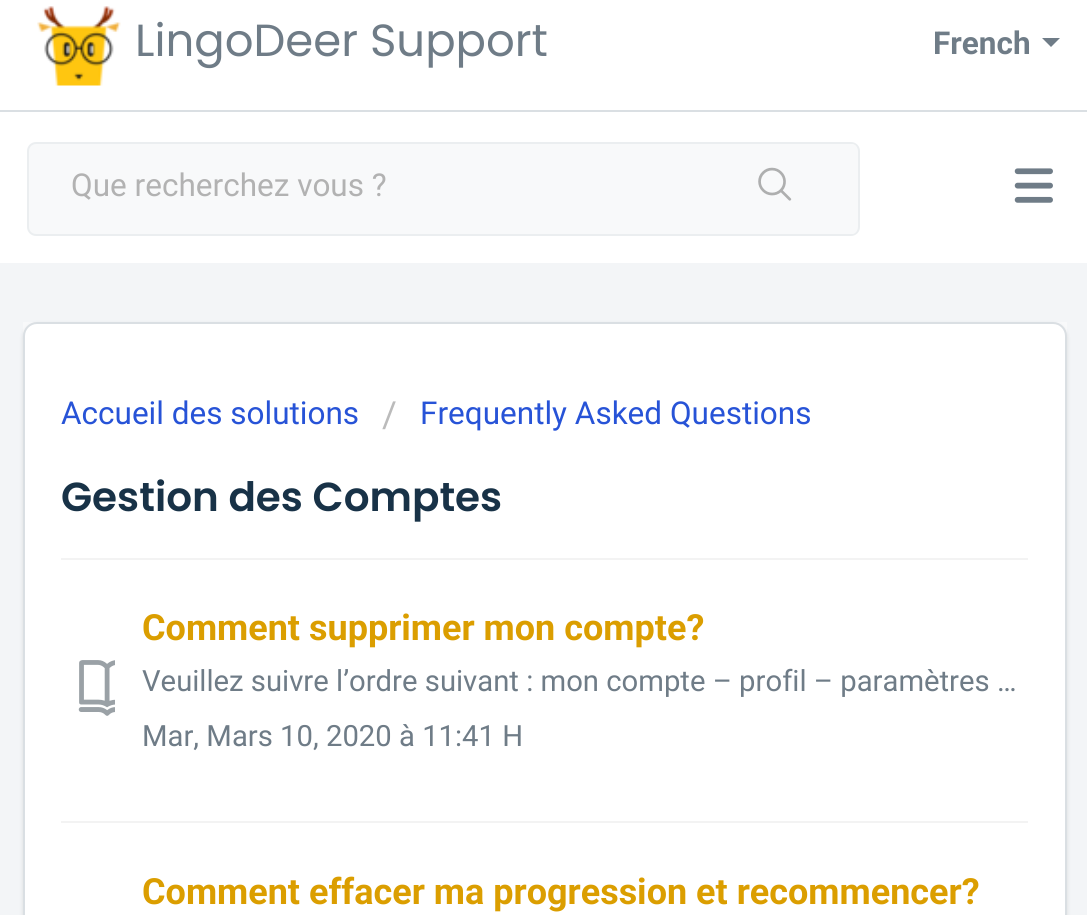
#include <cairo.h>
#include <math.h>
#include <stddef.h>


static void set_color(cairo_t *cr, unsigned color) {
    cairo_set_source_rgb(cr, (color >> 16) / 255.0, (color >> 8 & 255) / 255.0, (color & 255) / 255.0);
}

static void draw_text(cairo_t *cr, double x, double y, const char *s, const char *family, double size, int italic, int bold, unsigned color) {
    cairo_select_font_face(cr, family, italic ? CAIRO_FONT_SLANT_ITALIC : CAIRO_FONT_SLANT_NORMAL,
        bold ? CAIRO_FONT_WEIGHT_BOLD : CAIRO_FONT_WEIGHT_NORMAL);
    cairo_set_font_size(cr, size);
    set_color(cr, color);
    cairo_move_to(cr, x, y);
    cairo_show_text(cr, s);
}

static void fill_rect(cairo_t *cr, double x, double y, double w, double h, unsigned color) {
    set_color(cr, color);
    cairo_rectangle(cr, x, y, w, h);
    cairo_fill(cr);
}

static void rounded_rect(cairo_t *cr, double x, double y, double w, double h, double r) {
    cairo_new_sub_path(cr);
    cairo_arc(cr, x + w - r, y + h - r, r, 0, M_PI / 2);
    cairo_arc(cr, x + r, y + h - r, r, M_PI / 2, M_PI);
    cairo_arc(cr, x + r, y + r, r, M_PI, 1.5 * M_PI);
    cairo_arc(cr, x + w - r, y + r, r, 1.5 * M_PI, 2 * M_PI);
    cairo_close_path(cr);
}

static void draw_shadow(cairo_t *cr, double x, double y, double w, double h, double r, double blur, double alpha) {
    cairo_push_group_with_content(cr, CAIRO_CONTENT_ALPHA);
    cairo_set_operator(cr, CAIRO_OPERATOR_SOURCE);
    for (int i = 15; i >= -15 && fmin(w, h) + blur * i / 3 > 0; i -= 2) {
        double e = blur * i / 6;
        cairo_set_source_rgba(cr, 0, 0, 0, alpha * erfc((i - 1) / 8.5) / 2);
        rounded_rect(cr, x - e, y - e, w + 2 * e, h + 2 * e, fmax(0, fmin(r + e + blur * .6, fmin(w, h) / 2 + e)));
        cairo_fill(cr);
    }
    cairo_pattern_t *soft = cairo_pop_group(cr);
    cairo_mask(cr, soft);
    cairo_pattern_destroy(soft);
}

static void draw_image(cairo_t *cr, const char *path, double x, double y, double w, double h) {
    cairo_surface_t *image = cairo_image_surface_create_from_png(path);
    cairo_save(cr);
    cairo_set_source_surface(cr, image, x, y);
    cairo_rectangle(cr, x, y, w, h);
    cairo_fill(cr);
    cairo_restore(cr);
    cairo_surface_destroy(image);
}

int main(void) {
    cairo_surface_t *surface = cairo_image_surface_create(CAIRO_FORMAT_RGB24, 1087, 915);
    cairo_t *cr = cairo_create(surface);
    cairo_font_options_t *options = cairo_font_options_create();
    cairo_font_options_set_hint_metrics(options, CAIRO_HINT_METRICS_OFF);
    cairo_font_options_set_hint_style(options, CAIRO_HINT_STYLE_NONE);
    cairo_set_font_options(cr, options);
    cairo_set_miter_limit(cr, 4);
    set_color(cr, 0xF3F5F7);
    cairo_paint(cr);
    fill_rect(cr, 0, 0, 1087, 263, 0xFFFFFF);
    fill_rect(cr, 0, 110, 1087, 2, 0xDADFE3);
    draw_image(cr, "assets/img1.png", 37, 6, 84, 80);
    draw_text(cr, 135, 56, "LingoDeer Support", "Poppins", 45, 0, 0, 0x6F7C87);
    draw_text(cr, 933, 54, "French", "Roboto", 31.5, 0, 1, 0x6F7C87);
    cairo_new_path(cr);
    cairo_move_to(cr, 1042, 38);
    cairo_line_to(cr, 1060, 38);
    cairo_line_to(cr, 1051, 47);
    cairo_close_path(cr);
    cairo_fill(cr);
    set_color(cr, 0xF8F9FA);
    rounded_rect(cr, 28, 143, 831, 92, 8);
    cairo_fill_preserve(cr);
    set_color(cr, 0xEBEEF0);
    cairo_stroke(cr);
    draw_text(cr, 71, 196, "Que recherchez vous ?", "Roboto", 31.5, 0, 0, 0xB2B2B2);
    set_color(cr, 0xF8F9FA);
    rounded_rect(cr, 693, 144, 164, 90, 5);
    cairo_fill(cr);
    draw_image(cr, "assets/img2.png", 758, 167, 34, 34);
    draw_image(cr, "assets/img3.png", 1014, 168, 39, 35);
    fill_rect(cr, 23, 322, 1044, 14, 0xF8F9FA);
    set_color(cr, 0x3F3F44);
    draw_shadow(cr, 23, 324, 1044, 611, 14, 2, 0.15);
    set_color(cr, 0xFFFFFF);
    rounded_rect(cr, 24, 323, 1042, 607, 13);
    cairo_fill_preserve(cr);
    set_color(cr, 0xDADFE3);
    cairo_stroke(cr);
    draw_text(cr, 61, 424, "Accueil des solutions", "Roboto", 31.5, 0, 0, 0x2753D7);
    draw_text(cr, 382, 427, "/", "Roboto", 36, 0, 0, 0xBBBBBB);
    draw_text(cr, 420, 424, "Frequently Asked Questions", "Roboto", 31.5, 0, 0, 0x2753D7);
    draw_text(cr, 61, 511, "Gestion des Comptes", "Poppins SemiBold", 40.5, 0, 0, 0x183247);
    fill_rect(cr, 61, 558, 967, 2, 0xF3F3F3);
    draw_text(cr, 142, 640, "Comment supprimer mon compte?", "Roboto", 36, 0, 1, 0xDB9E00);
    draw_image(cr, "assets/img4.png", 78, 660, 37, 56);
    draw_text(cr, 142, 691, "Veuillez suivre l’ordre suivant : mon compte – profil – paramètres …", "Roboto", 29.25, 0, 0, 0x6F7C87);
    draw_text(cr, 142, 746, "Mar, Mars 10, 2020 à 11:41 H", "Roboto", 29.25, 0, 0, 0x6F7C87);
    fill_rect(cr, 61, 821, 967, 2, 0xF3F3F3);
    draw_text(cr, 142, 904, "Comment effacer ma progression et recommencer?", "Roboto", 36, 0, 1, 0xDB9E00);
    cairo_surface_write_to_png(surface, "output.png");
    cairo_font_options_destroy(options);
    cairo_destroy(cr);
    cairo_surface_destroy(surface);
    return 0;
}
